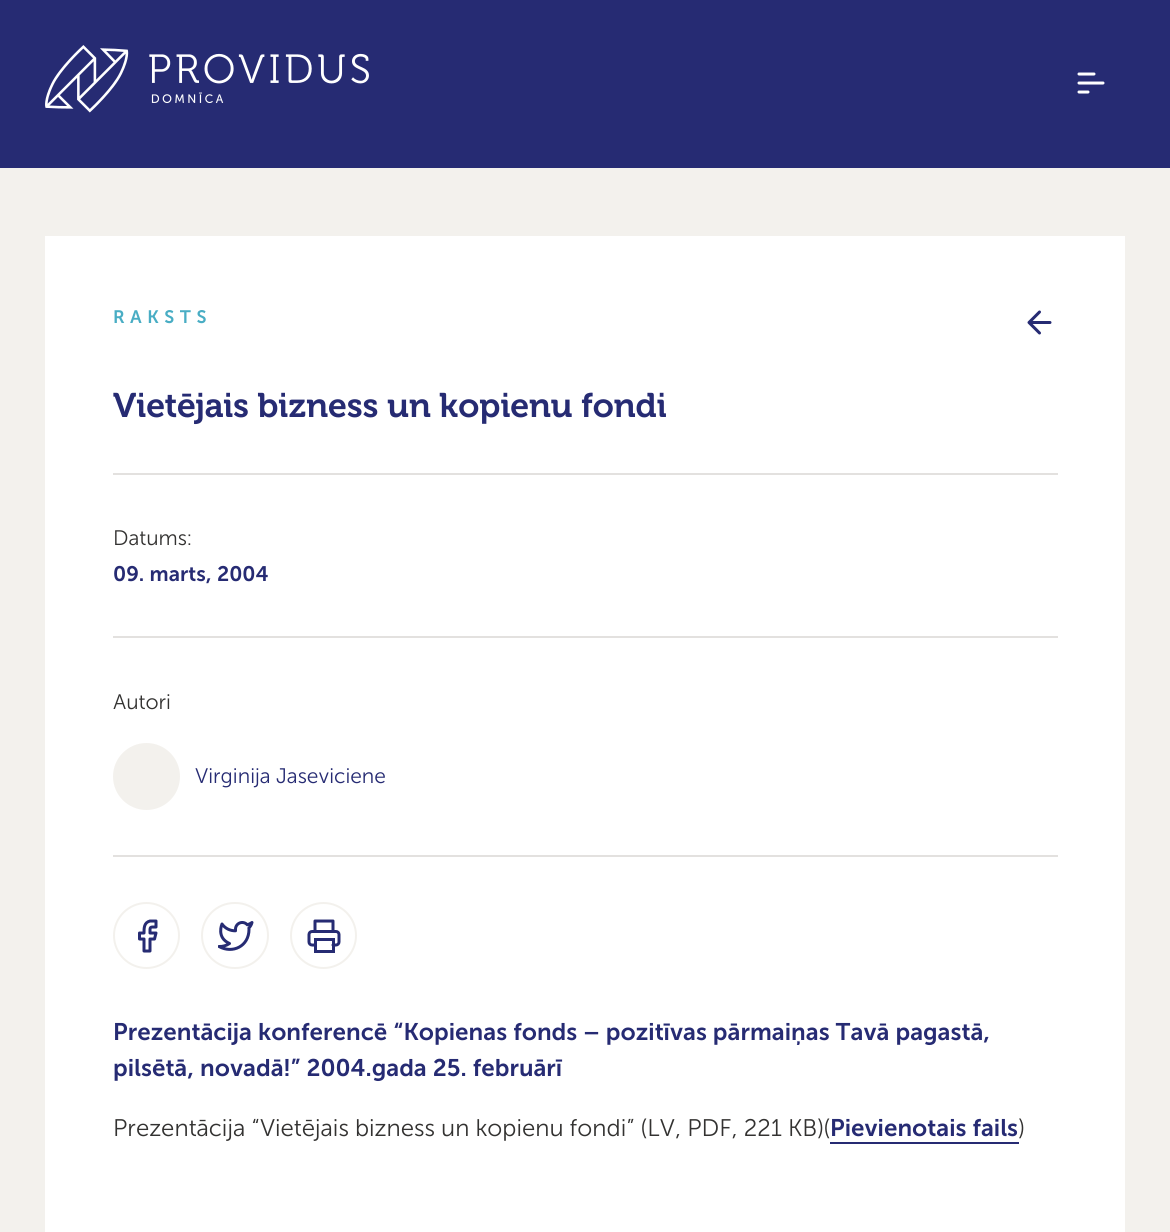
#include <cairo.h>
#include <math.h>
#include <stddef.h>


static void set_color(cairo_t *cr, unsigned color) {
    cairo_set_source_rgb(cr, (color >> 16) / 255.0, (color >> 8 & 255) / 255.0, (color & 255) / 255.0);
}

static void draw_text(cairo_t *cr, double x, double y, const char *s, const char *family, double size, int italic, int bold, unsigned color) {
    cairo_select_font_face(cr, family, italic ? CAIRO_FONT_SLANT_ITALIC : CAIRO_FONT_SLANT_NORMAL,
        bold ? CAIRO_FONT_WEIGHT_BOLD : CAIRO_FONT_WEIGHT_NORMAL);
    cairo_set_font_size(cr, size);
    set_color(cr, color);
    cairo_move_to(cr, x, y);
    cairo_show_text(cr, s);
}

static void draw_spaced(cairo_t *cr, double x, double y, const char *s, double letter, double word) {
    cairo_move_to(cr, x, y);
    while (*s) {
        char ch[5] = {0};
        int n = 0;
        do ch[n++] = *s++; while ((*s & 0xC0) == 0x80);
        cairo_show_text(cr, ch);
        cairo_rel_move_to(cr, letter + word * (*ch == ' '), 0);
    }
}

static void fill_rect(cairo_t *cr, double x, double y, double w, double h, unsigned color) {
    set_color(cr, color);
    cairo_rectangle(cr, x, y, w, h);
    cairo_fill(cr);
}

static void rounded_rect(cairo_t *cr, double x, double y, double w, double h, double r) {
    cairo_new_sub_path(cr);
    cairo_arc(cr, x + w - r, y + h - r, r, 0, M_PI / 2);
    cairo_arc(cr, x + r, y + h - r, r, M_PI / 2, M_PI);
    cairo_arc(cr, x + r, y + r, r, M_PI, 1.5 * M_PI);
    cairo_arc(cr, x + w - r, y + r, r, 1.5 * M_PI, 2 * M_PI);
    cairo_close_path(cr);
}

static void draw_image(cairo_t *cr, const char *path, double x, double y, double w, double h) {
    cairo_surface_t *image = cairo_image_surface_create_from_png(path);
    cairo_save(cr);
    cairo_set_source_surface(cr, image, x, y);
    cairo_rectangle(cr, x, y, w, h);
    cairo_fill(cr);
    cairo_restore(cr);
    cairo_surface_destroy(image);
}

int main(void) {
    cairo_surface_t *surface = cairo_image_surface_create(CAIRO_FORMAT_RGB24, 1170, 1232);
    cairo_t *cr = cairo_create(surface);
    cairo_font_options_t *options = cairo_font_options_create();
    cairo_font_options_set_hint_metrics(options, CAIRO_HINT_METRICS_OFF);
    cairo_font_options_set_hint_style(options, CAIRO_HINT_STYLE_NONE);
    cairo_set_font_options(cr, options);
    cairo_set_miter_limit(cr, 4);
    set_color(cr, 0x262B73);
    cairo_paint(cr);
    draw_image(cr, "assets/img1.png", 45, 45, 324, 68);
    cairo_new_path(cr);
    cairo_move_to(cr, 1079, 74);
    cairo_line_to(cr, 1094, 74);
    cairo_move_to(cr, 1079, 83);
    cairo_line_to(cr, 1103, 83);
    cairo_move_to(cr, 1079, 92);
    cairo_line_to(cr, 1088, 92);
    set_color(cr, 0xFFFFFF);
    cairo_set_line_width(cr, 3);
    cairo_set_line_cap(cr, CAIRO_LINE_CAP_ROUND);
    cairo_set_line_join(cr, CAIRO_LINE_JOIN_ROUND);
    cairo_stroke(cr);
    fill_rect(cr, 0, 168, 1170, 1064, 0xF3F1ED);
    fill_rect(cr, 45, 236, 1080, 996, 0xFFFFFF);
    cairo_select_font_face(cr, "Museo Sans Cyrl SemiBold", CAIRO_FONT_SLANT_NORMAL, CAIRO_FONT_WEIGHT_NORMAL);
    cairo_set_font_size(cr, 18);
    set_color(cr, 0x49ADC4);
    draw_spaced(cr, 113, 323, "RAKSTS", 5.5, 0);
    cairo_new_path(cr);
    cairo_move_to(cr, 1050, 322.5);
    cairo_line_to(cr, 1029, 322.5);
    cairo_move_to(cr, 1039.5, 333);
    cairo_line_to(cr, 1029, 322.5);
    cairo_line_to(cr, 1039.5, 312);
    set_color(cr, 0x262B73);
    cairo_stroke(cr);
    draw_text(cr, 113, 417, "Vietējais bizness un kopienu fondi", "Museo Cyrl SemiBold", 34.1, 0, 0, 0x262B73);
    fill_rect(cr, 113, 473, 945, 2, 0xE3E1DF);
    draw_text(cr, 113, 545, "Datums:", "Museo Sans Cyrl Light", 21, 0, 0, 0x333231);
    draw_text(cr, 113, 581, "09. marts, 2004", "Museo Sans Cyrl SemiBold", 21, 0, 0, 0x262B73);
    fill_rect(cr, 113, 636, 945, 2, 0xE3E1DF);
    draw_text(cr, 113, 709, "Autori", "Museo Sans Cyrl Light", 21, 0, 0, 0x333231);
    set_color(cr, 0xF3F1ED);
    cairo_new_path(cr);
    cairo_arc(cr, 146.5, 776.5, 33.5, 0, 2 * M_PI);
    cairo_fill(cr);
    draw_text(cr, 195, 783, "Virginija Jaseviciene", "Museo Sans Cyrl Light", 21, 0, 0, 0x262B73);
    fill_rect(cr, 113, 855, 945, 2, 0xE3E1DF);
    cairo_new_path(cr);
    cairo_arc(cr, 146.5, 935.5, 32.5, 0, 2 * M_PI);
    set_color(cr, 0xF3F1ED);
    cairo_set_line_width(cr, 2);
    cairo_set_line_cap(cr, CAIRO_LINE_CAP_BUTT);
    cairo_set_line_join(cr, CAIRO_LINE_JOIN_MITER);
    cairo_stroke(cr);
    cairo_new_path(cr);
    cairo_move_to(cr, 156, 921);
    cairo_line_to(cr, 150, 921);
    cairo_curve_to(cr, 144, 922.5, 144, 928, 144, 933);
    cairo_line_to(cr, 139.5, 933);
    cairo_line_to(cr, 139.5, 939);
    cairo_line_to(cr, 144, 939);
    cairo_line_to(cr, 144, 951);
    cairo_line_to(cr, 150, 951);
    cairo_line_to(cr, 150, 939);
    cairo_line_to(cr, 154.5, 939);
    cairo_line_to(cr, 156, 933);
    cairo_line_to(cr, 150, 933);
    cairo_curve_to(cr, 150, 926.5, 149.5, 927, 156, 927);
    cairo_close_path(cr);
    set_color(cr, 0x262B73);
    cairo_set_line_width(cr, 3);
    cairo_set_line_cap(cr, CAIRO_LINE_CAP_ROUND);
    cairo_set_line_join(cr, CAIRO_LINE_JOIN_ROUND);
    cairo_stroke(cr);
    rounded_rect(cr, 202, 903, 66, 65, 32.5);
    set_color(cr, 0xF3F1ED);
    cairo_set_line_width(cr, 2);
    cairo_set_line_cap(cr, CAIRO_LINE_CAP_BUTT);
    cairo_set_line_join(cr, CAIRO_LINE_JOIN_MITER);
    cairo_stroke(cr);
    draw_image(cr, "assets/img2.png", 218, 921, 36, 30);
    cairo_arc(cr, 323.5, 935.5, 32.5, 0, 2 * M_PI);
    cairo_stroke(cr);
    draw_image(cr, "assets/img3.png", 307, 919, 34, 34);
    draw_text(cr, 113, 1040, "Prezentācija konferencē “Kopienas fonds – pozitīvas pārmaiņas Tavā pagastā,", "Museo Sans Cyrl SemiBold", 24, 0, 0, 0x262B73);
    draw_text(cr, 113, 1076, "pilsētā, novadā!” 2004.gada 25. februārī", "Museo Sans Cyrl SemiBold", 24, 0, 0, 0x262B73);
    draw_text(cr, 113, 1136, "Prezentācija “Vietējais bizness un kopienu fondi” (LV, PDF, 221 KB)(", "Museo Sans Cyrl Light", 24, 0, 0, 0x333231);
    draw_text(cr, 830, 1136, "Pievienotais fails", "Museo Sans Cyrl SemiBold", 24, 0, 0, 0x262B73);
    fill_rect(cr, 830, 1142, 189, 2, 0x262B73);
    draw_text(cr, 1018, 1136, ")", "Museo Sans Cyrl Light", 24, 0, 0, 0x333231);
    cairo_surface_write_to_png(surface, "output.png");
    cairo_font_options_destroy(options);
    cairo_destroy(cr);
    cairo_surface_destroy(surface);
    return 0;
}
